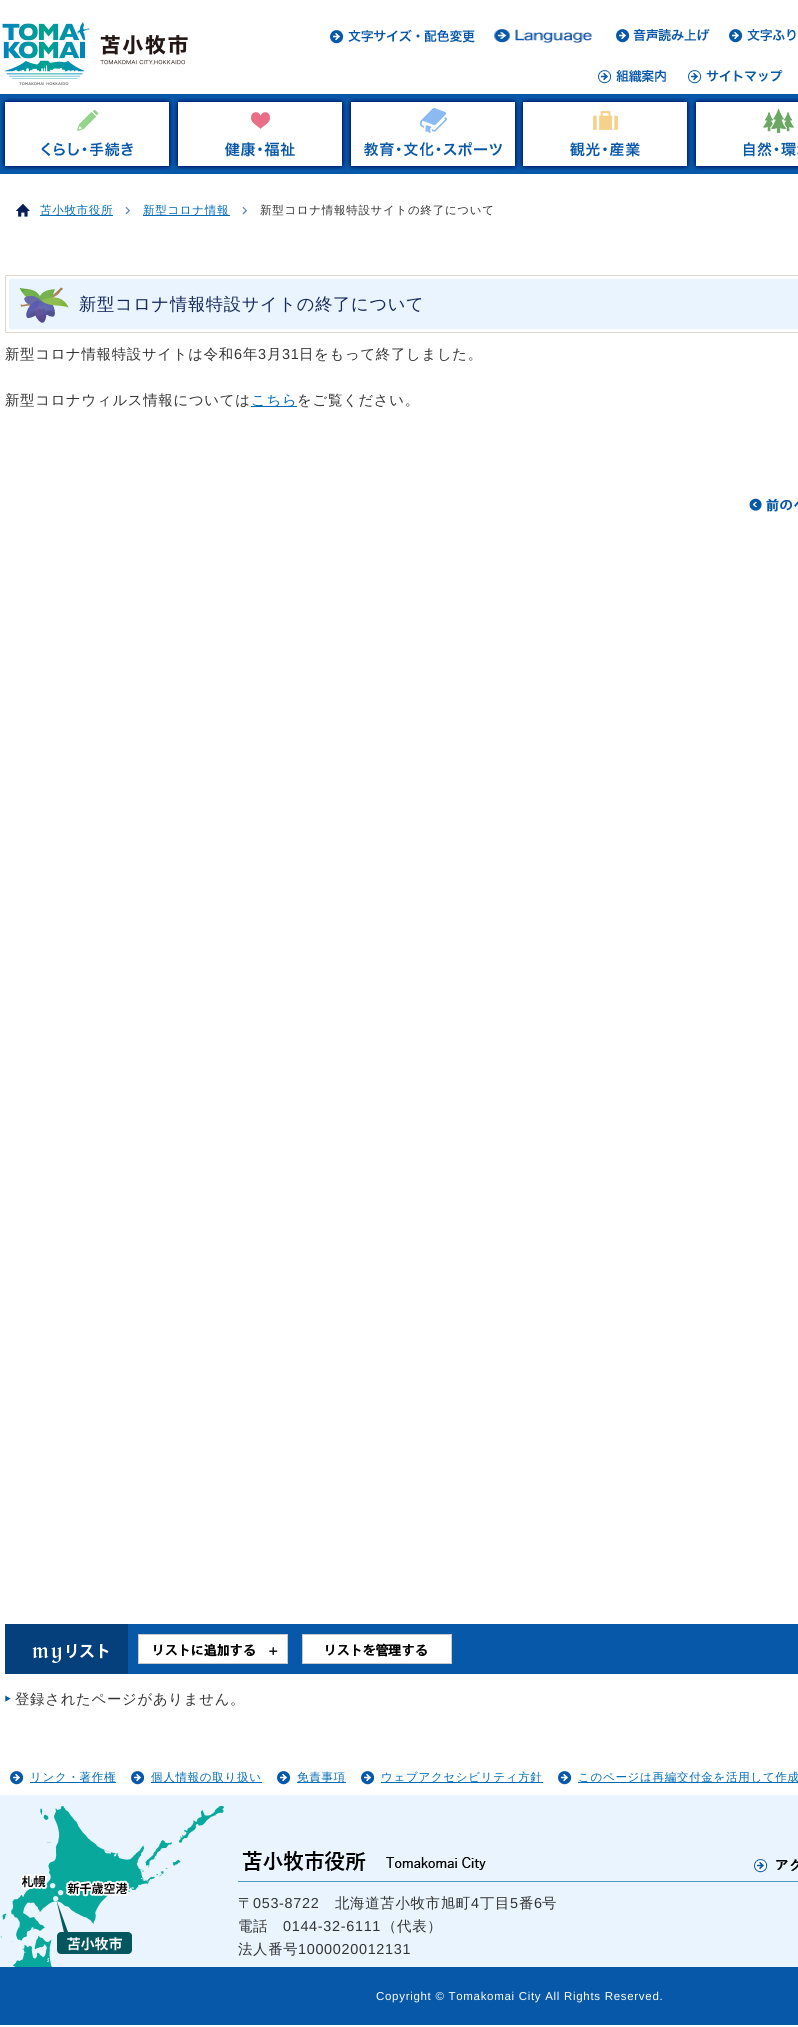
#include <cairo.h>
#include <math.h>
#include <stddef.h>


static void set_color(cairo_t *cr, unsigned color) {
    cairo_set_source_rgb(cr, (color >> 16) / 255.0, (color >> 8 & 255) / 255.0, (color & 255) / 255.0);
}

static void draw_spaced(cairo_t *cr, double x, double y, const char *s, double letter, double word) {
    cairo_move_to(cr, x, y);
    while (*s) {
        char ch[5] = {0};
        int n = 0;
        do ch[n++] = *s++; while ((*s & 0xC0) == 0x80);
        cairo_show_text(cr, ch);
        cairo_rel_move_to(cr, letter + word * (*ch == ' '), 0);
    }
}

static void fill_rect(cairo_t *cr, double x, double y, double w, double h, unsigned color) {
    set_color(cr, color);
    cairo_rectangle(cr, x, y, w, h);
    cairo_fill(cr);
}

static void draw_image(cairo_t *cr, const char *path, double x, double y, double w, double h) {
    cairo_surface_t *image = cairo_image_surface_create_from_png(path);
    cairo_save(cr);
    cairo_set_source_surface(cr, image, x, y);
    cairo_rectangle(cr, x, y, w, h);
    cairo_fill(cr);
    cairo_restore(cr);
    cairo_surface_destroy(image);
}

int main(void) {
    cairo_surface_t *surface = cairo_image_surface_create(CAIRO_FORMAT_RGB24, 798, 2027);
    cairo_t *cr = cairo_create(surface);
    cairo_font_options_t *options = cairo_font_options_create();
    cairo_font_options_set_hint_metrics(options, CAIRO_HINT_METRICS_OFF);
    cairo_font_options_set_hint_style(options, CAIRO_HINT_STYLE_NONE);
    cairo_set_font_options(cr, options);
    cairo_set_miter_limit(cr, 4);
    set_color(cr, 0xFFFFFF);
    cairo_paint(cr);
    draw_image(cr, "assets/img1.png", 2, 22, 186, 63);
    draw_image(cr, "assets/img2.png", 330, 29, 145, 15);
    draw_image(cr, "assets/img3.png", 494, 29, 99, 14);
    draw_image(cr, "assets/img4.png", 616, 29, 94, 14);
    draw_image(cr, "assets/img5.png", 729, 29, 67, 14);
    draw_image(cr, "assets/img6.png", 598, 70, 68, 14);
    draw_image(cr, "assets/img7.png", 688, 70, 95, 14);
    fill_rect(cr, 0, 94, 798, 80, 0x0858A9);
    draw_image(cr, "assets/img8.png", 1, 98, 173, 72);
    draw_image(cr, "assets/img9.png", 174, 98, 173, 72);
    draw_image(cr, "assets/img10.png", 347, 98, 173, 72);
    draw_image(cr, "assets/img11.png", 520, 98, 173, 72);
    draw_image(cr, "assets/img12.png", 693, 98, 105, 72);
    draw_image(cr, "assets/img13.png", 15, 203, 15, 14);
    fill_rect(cr, 40, 215, 73, 1, 0x006BB4);
    cairo_select_font_face(cr, "WenQuanYi Zen Hei Medium", CAIRO_FONT_SLANT_NORMAL, CAIRO_FONT_WEIGHT_NORMAL);
    cairo_set_font_size(cr, 11.5);
    draw_spaced(cr, 40, 214, "苫小牧市役所", 0.7, 0);
    draw_image(cr, "assets/img14.png", 125, 207, 5, 8);
    fill_rect(cr, 143, 215, 87, 1, 0x006BB4);
    draw_spaced(cr, 143, 214, "新型コロナ情報", 0.7, 0);
    draw_image(cr, "assets/img14.png", 242, 207, 5, 8);
    set_color(cr, 0x333333);
    draw_spaced(cr, 260, 214, "新型コロナ情報特設サイトの終了について", 0.7, 0);
    fill_rect(cr, 9, 279, 789, 50, 0xE9F4FF);
    cairo_rectangle(cr, 5.5, 275.5, 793, 57);
    set_color(cr, 0xDDD8CD);
    cairo_set_line_width(cr, 1);
    cairo_stroke(cr);
    draw_image(cr, "assets/img15.png", 19, 287, 50, 36);
    cairo_set_font_size(cr, 17.25);
    set_color(cr, 0x15275B);
    draw_spaced(cr, 79, 310, "新型コロナ情報特設サイトの終了について", 0.7, 0);
    cairo_set_font_size(cr, 14.4);
    set_color(cr, 0x333333);
    draw_spaced(cr, 5, 359, "新型コロナ情報特設サイトは令和", 0.7, 0);
    cairo_select_font_face(cr, "Liberation Sans", CAIRO_FONT_SLANT_NORMAL, CAIRO_FONT_WEIGHT_NORMAL);
    draw_spaced(cr, 234, 359, "6", 0.7, 0);
    cairo_select_font_face(cr, "WenQuanYi Zen Hei Medium", CAIRO_FONT_SLANT_NORMAL, CAIRO_FONT_WEIGHT_NORMAL);
    draw_spaced(cr, 243, 359, "年", 0.7, 0);
    cairo_select_font_face(cr, "Liberation Sans", CAIRO_FONT_SLANT_NORMAL, CAIRO_FONT_WEIGHT_NORMAL);
    draw_spaced(cr, 258, 359, "3", 0.7, 0);
    cairo_select_font_face(cr, "WenQuanYi Zen Hei Medium", CAIRO_FONT_SLANT_NORMAL, CAIRO_FONT_WEIGHT_NORMAL);
    draw_spaced(cr, 267, 359, "月", 0.7, 0);
    cairo_select_font_face(cr, "Liberation Sans", CAIRO_FONT_SLANT_NORMAL, CAIRO_FONT_WEIGHT_NORMAL);
    draw_spaced(cr, 282, 359, "31", 0.7, 0);
    cairo_select_font_face(cr, "WenQuanYi Zen Hei Medium", CAIRO_FONT_SLANT_NORMAL, CAIRO_FONT_WEIGHT_NORMAL);
    draw_spaced(cr, 299, 359, "日をもって終了しました。", 0.7, 0);
    draw_spaced(cr, 5, 405, "新型コロナウィルス情報については", 0.7, 0);
    fill_rect(cr, 251, 406, 46, 1, 0x006BB4);
    draw_spaced(cr, 251, 405, "こちら", 0.7, 0);
    set_color(cr, 0x333333);
    draw_spaced(cr, 297, 405, "をご覧ください。", 0.7, 0);
    draw_image(cr, "assets/img16.png", 749, 498, 49, 14);
    fill_rect(cr, 128, 1624, 670, 50, 0x0858A9);
    fill_rect(cr, 5, 1624, 123, 50, 0x05407C);
    draw_image(cr, "assets/img17.png", 32, 1644, 77, 19);
    draw_image(cr, "assets/img18.png", 138, 1634, 150, 30);
    draw_image(cr, "assets/img19.png", 302, 1634, 150, 30);
    draw_image(cr, "assets/img20.png", 5, 1695, 6, 7);
    set_color(cr, 0x333333);
    draw_spaced(cr, 15, 1704, "登録されたページがありません。", 0.7, 0);
    draw_image(cr, "assets/img21.png", 10, 1771, 14, 14);
    fill_rect(cr, 30, 1782, 86, 1, 0x006BB4);
    cairo_set_font_size(cr, 11.5);
    draw_spaced(cr, 30, 1781, "リンク・著作権", 0.7, 0);
    draw_image(cr, "assets/img21.png", 131, 1771, 14, 14);
    fill_rect(cr, 151, 1782, 111, 1, 0x006BB4);
    draw_spaced(cr, 151, 1781, "個人情報の取り扱い", 0.7, 0);
    draw_image(cr, "assets/img21.png", 277, 1771, 14, 14);
    fill_rect(cr, 297, 1782, 49, 1, 0x006BB4);
    draw_spaced(cr, 297, 1781, "免責事項", 0.7, 0);
    draw_image(cr, "assets/img21.png", 361, 1771, 14, 14);
    fill_rect(cr, 381, 1782, 162, 1, 0x006BB4);
    draw_spaced(cr, 381, 1781, "ウェブアクセシビリティ方針", 0.7, 0);
    draw_image(cr, "assets/img21.png", 558, 1771, 14, 14);
    fill_rect(cr, 578, 1782, 220, 1, 0x006BB4);
    draw_spaced(cr, 578, 1781, "このページは再編交付金を活用して作成", 0.7, 0);
    fill_rect(cr, 0, 1795, 798, 172, 0xE9F4FF);
    draw_image(cr, "assets/img22.png", 0, 1806, 224, 161);
    fill_rect(cr, 238, 1881, 560, 1, 0x4E9ABA);
    draw_image(cr, "assets/img23.png", 242, 1851, 244, 20);
    draw_image(cr, "assets/img24.png", 754, 1859, 44, 14);
    cairo_set_font_size(cr, 14.4);
    set_color(cr, 0x333333);
    draw_spaced(cr, 238, 1908, "〒", 0.7, 0);
    cairo_select_font_face(cr, "Liberation Sans", CAIRO_FONT_SLANT_NORMAL, CAIRO_FONT_WEIGHT_NORMAL);
    draw_spaced(cr, 253, 1908, "053-8722", 0.7, 0);
    cairo_select_font_face(cr, "WenQuanYi Zen Hei Medium", CAIRO_FONT_SLANT_NORMAL, CAIRO_FONT_WEIGHT_NORMAL);
    draw_spaced(cr, 335, 1908, "北海道苫小牧市旭町", 0.7, 0);
    cairo_select_font_face(cr, "Liberation Sans", CAIRO_FONT_SLANT_NORMAL, CAIRO_FONT_WEIGHT_NORMAL);
    draw_spaced(cr, 471, 1908, "4", 0.7, 0);
    cairo_select_font_face(cr, "WenQuanYi Zen Hei Medium", CAIRO_FONT_SLANT_NORMAL, CAIRO_FONT_WEIGHT_NORMAL);
    draw_spaced(cr, 480, 1908, "丁目", 0.7, 0);
    cairo_select_font_face(cr, "Liberation Sans", CAIRO_FONT_SLANT_NORMAL, CAIRO_FONT_WEIGHT_NORMAL);
    draw_spaced(cr, 510, 1908, "5", 0.7, 0);
    cairo_select_font_face(cr, "WenQuanYi Zen Hei Medium", CAIRO_FONT_SLANT_NORMAL, CAIRO_FONT_WEIGHT_NORMAL);
    draw_spaced(cr, 519, 1908, "番", 0.7, 0);
    cairo_select_font_face(cr, "Liberation Sans", CAIRO_FONT_SLANT_NORMAL, CAIRO_FONT_WEIGHT_NORMAL);
    draw_spaced(cr, 534, 1908, "6", 0.7, 0);
    cairo_select_font_face(cr, "WenQuanYi Zen Hei Medium", CAIRO_FONT_SLANT_NORMAL, CAIRO_FONT_WEIGHT_NORMAL);
    draw_spaced(cr, 542, 1908, "号", 0.7, 0);
    draw_spaced(cr, 238, 1931, "電話", 0.7, 0);
    cairo_select_font_face(cr, "Liberation Sans", CAIRO_FONT_SLANT_NORMAL, CAIRO_FONT_WEIGHT_NORMAL);
    draw_spaced(cr, 283, 1931, "0144-32-6111", 0.7, 0);
    cairo_select_font_face(cr, "WenQuanYi Zen Hei Medium", CAIRO_FONT_SLANT_NORMAL, CAIRO_FONT_WEIGHT_NORMAL);
    draw_spaced(cr, 382, 1931, "（代表）", 0.7, 0);
    draw_spaced(cr, 238, 1954, "法人番号", 0.7, 0);
    cairo_select_font_face(cr, "Liberation Sans", CAIRO_FONT_SLANT_NORMAL, CAIRO_FONT_WEIGHT_NORMAL);
    draw_spaced(cr, 298, 1954, "1000020012131", 0.7, 0);
    fill_rect(cr, 0, 1967, 798, 58, 0x0858A9);
    cairo_set_font_size(cr, 11.5);
    set_color(cr, 0xFFFFFF);
    draw_spaced(cr, 376, 2000, "Copyright © Tomakomai City All Rights Reserved.", 0.7, 0);
    cairo_surface_write_to_png(surface, "output.png");
    cairo_font_options_destroy(options);
    cairo_destroy(cr);
    cairo_surface_destroy(surface);
    return 0;
}
